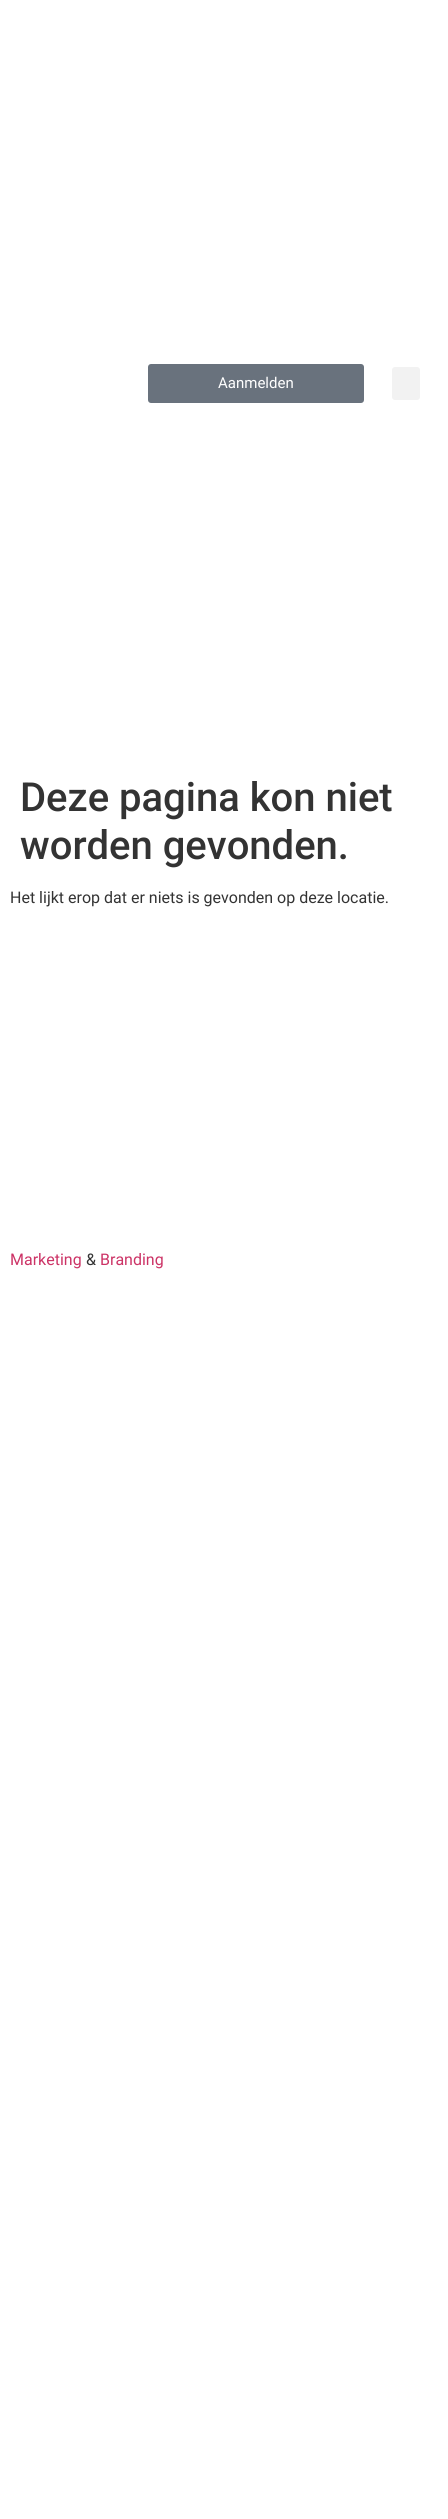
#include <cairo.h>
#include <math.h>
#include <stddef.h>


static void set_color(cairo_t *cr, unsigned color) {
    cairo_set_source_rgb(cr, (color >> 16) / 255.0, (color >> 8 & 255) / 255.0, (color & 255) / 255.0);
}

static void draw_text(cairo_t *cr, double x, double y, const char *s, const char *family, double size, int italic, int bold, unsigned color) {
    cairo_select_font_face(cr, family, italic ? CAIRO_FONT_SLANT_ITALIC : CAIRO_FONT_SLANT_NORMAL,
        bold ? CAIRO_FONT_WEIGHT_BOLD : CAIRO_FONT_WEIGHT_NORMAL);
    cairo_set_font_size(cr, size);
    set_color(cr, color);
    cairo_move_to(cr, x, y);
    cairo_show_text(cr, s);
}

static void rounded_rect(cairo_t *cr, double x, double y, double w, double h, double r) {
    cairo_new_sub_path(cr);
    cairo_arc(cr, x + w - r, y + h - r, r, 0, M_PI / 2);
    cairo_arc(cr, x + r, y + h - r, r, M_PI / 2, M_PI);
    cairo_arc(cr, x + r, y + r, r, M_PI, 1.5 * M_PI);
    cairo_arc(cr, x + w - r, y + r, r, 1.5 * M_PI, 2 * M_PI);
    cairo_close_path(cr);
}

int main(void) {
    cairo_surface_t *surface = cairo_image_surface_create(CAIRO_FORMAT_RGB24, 448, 2519);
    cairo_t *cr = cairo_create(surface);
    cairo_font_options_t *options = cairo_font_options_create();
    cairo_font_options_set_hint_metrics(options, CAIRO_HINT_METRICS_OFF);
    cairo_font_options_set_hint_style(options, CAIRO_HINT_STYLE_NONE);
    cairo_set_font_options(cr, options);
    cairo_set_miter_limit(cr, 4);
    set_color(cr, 0xFFFFFF);
    cairo_paint(cr);
    set_color(cr, 0x69727D);
    rounded_rect(cr, 148, 364, 216, 39, 3);
    cairo_fill(cr);
    draw_text(cr, 218, 388, "Aanmelden", "Roboto", 15, 0, 0, 0xFFFFFF);
    set_color(cr, 0xF2F2F2);
    rounded_rect(cr, 392, 367, 28, 33, 3);
    cairo_fill(cr);
    draw_text(cr, 20, 811, "Deze pagina kon niet", "Roboto Medium", 40, 0, 0, 0x333333);
    draw_text(cr, 20, 859, "worden gevonden.", "Roboto Medium", 40, 0, 0, 0x333333);
    draw_text(cr, 10, 903, "Het lijkt erop dat er niets is gevonden op deze locatie.", "Roboto", 16, 0, 0, 0x333333);
    draw_text(cr, 10, 1265, "Marketing", "Roboto", 16, 0, 0, 0xCC3366);
    draw_text(cr, 86, 1265, "&", "Roboto", 16, 0, 0, 0x333333);
    draw_text(cr, 100, 1265, "Branding", "Roboto", 16, 0, 0, 0xCC3366);
    cairo_surface_write_to_png(surface, "output.png");
    cairo_font_options_destroy(options);
    cairo_destroy(cr);
    cairo_surface_destroy(surface);
    return 0;
}
